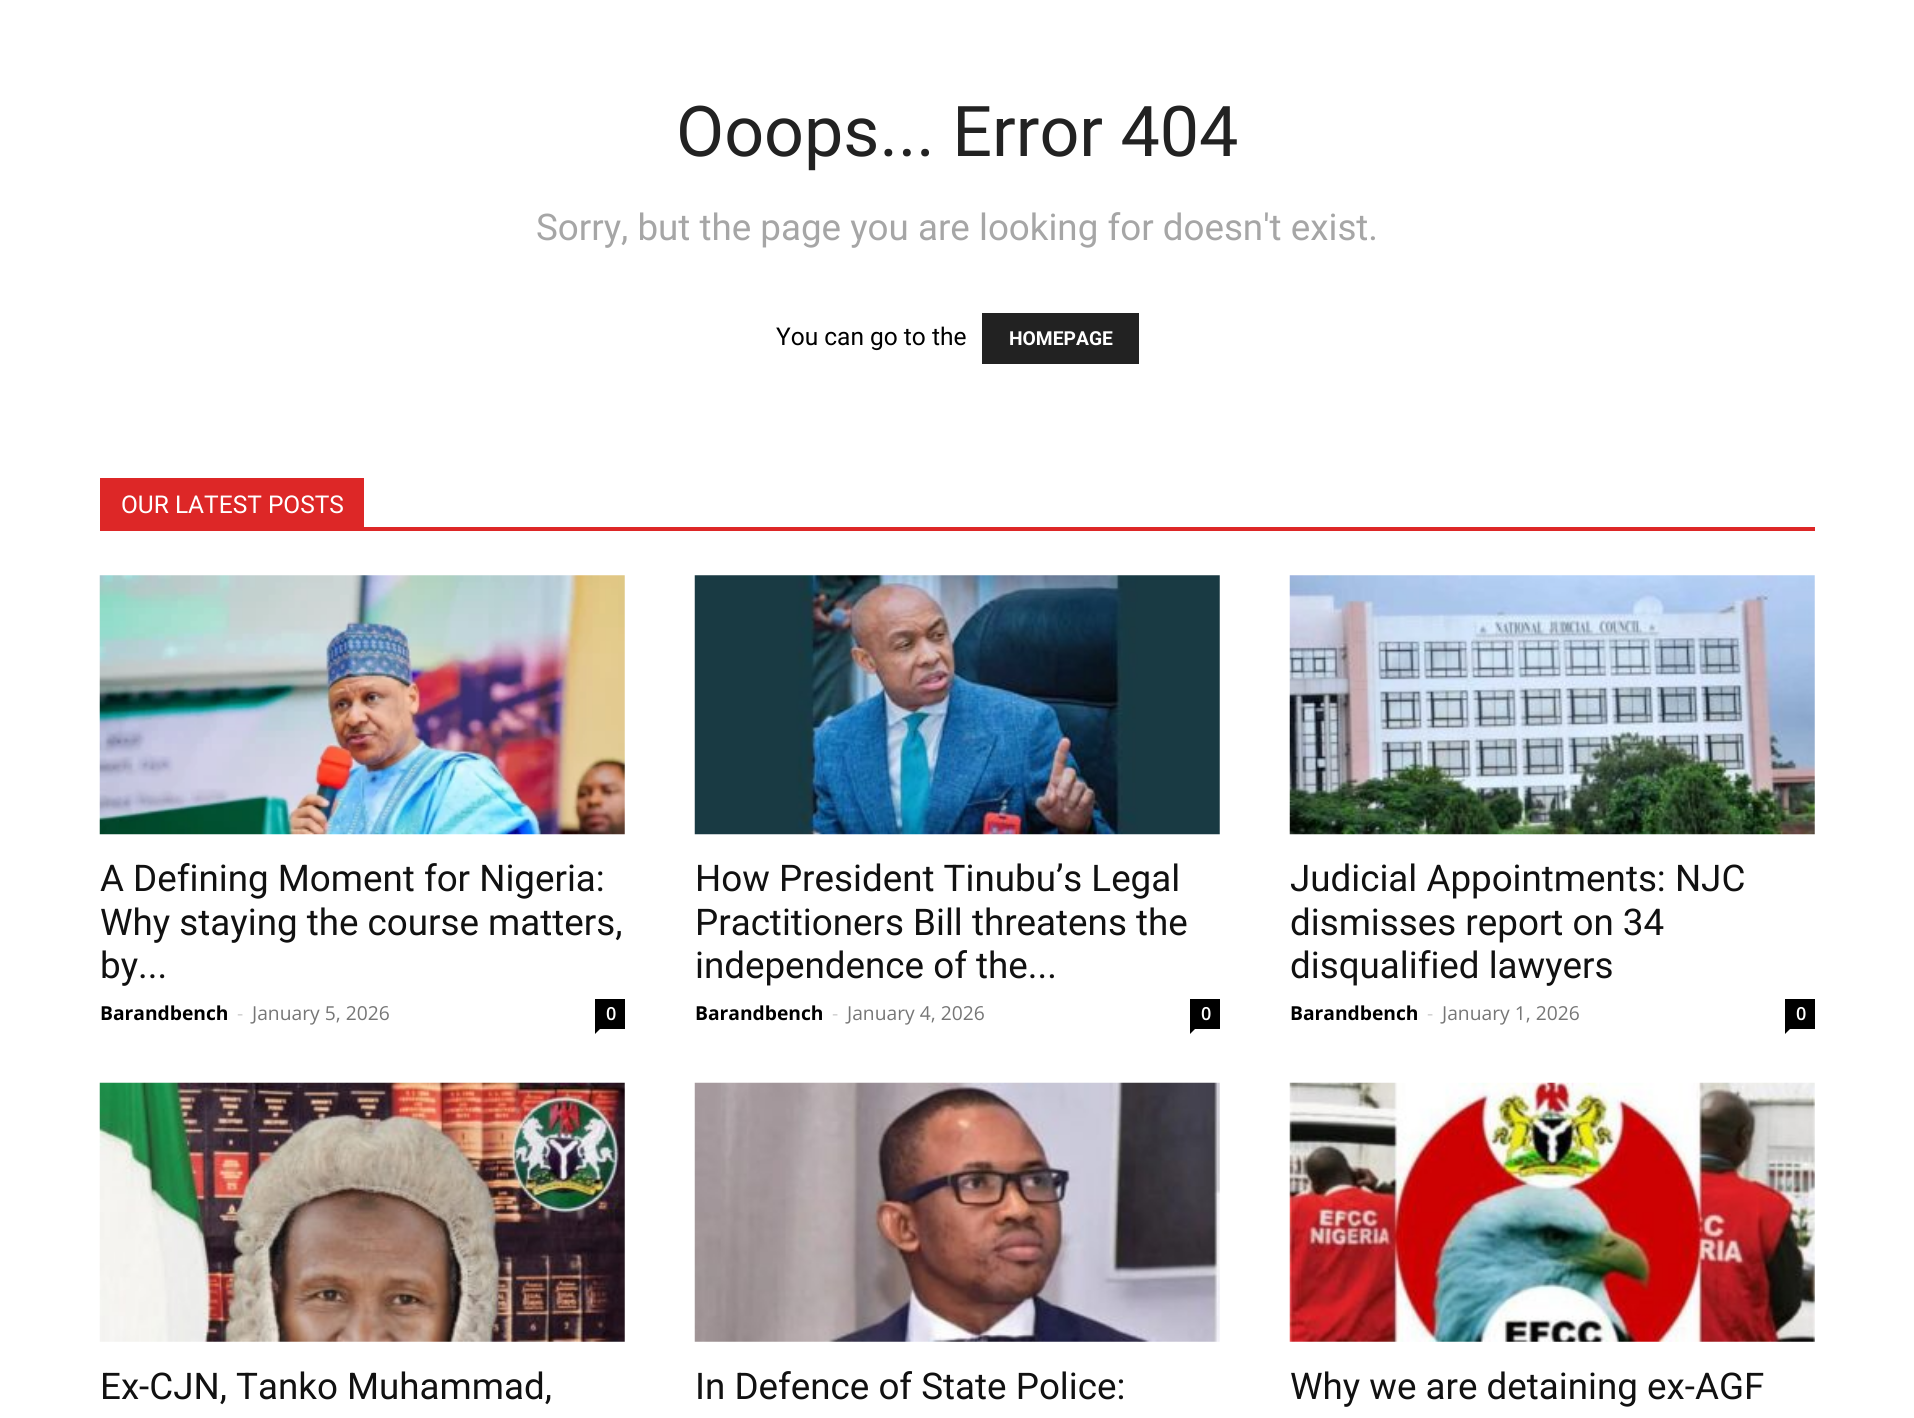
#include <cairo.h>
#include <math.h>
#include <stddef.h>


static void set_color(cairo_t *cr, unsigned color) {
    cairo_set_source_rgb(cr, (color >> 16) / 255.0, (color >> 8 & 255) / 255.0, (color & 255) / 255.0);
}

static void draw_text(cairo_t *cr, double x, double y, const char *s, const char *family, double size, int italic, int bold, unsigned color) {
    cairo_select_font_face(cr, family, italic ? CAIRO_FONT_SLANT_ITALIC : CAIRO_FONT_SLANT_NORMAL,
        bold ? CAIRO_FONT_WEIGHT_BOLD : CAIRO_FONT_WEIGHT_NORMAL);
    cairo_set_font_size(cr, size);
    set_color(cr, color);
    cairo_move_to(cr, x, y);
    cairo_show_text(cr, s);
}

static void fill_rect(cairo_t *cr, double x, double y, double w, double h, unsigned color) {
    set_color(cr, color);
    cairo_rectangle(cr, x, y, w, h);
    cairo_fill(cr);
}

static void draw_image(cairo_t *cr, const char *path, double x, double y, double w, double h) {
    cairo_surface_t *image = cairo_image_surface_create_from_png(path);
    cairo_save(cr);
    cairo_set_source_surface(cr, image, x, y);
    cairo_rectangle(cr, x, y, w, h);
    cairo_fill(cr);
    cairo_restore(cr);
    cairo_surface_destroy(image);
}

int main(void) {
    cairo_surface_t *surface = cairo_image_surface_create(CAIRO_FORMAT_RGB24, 1914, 1418);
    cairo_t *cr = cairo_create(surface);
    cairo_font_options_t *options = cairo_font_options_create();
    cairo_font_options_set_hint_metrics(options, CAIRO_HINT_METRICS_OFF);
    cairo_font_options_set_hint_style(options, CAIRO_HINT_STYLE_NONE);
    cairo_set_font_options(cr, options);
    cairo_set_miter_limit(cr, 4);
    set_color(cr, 0xFFFFFF);
    cairo_paint(cr);
    draw_text(cr, 676, 156, "Ooops... Error 404", "Roboto", 70, 0, 0, 0x222222);
    draw_text(cr, 536, 240, "Sorry, but the page you are looking for doesn't exist.", "Roboto", 36.75, 0, 0, 0xA6A6A6);
    draw_text(cr, 776, 345, "You can go to the", "Roboto", 24.5, 0, 0, 0x000000);
    fill_rect(cr, 982, 313, 157, 51, 0x222222);
    draw_text(cr, 1009, 345, "HOMEPAGE", "Roboto", 19.25, 0, 1, 0xFFFFFF);
    fill_rect(cr, 100, 527, 1715, 4, 0xDD2727);
    fill_rect(cr, 100, 478, 264, 49, 0xDD2727);
    draw_text(cr, 121, 513, "OUR LATEST POSTS", "Roboto", 24.5, 0, 0, 0xFFFFFF);
    draw_image(cr, "assets/img1.png", 99, 575, 526, 260);
    draw_text(cr, 100, 891, "A Defining Moment for Nigeria:", "Roboto", 36.75, 0, 0, 0x111111);
    draw_text(cr, 100, 935, "Why staying the course matters,", "Roboto", 36.75, 0, 0, 0x111111);
    draw_text(cr, 100, 978, "by...", "Roboto", 36.75, 0, 0, 0x111111);
    draw_text(cr, 100, 1020, "Barandbench", "Open Sans", 19.25, 0, 1, 0x000000);
    draw_text(cr, 237, 1020, "-", "Open Sans", 19.25, 0, 0, 0xCCCCCC);
    draw_text(cr, 252, 1020, "January 5, 2026", "Open Sans", 19.25, 0, 0, 0x767676);
    fill_rect(cr, 595, 999, 30, 30, 0x000000);
    draw_text(cr, 606, 1020, "0", "Open Sans SemiBold", 18, 0, 0, 0xFFFFFF);
    set_color(cr, 0x000000);
    cairo_new_path(cr);
    cairo_move_to(cr, 595, 1029);
    cairo_line_to(cr, 600, 1029);
    cairo_line_to(cr, 595, 1034);
    cairo_close_path(cr);
    cairo_fill(cr);
    draw_image(cr, "assets/img2.png", 694, 575, 526, 260);
    draw_text(cr, 695, 891, "How President Tinubu’s Legal", "Roboto", 36.75, 0, 0, 0x111111);
    draw_text(cr, 695, 935, "Practitioners Bill threatens the", "Roboto", 36.75, 0, 0, 0x111111);
    draw_text(cr, 695, 978, "independence of the...", "Roboto", 36.75, 0, 0, 0x111111);
    draw_text(cr, 695, 1020, "Barandbench", "Open Sans", 19.25, 0, 1, 0x000000);
    draw_text(cr, 832, 1020, "-", "Open Sans", 19.25, 0, 0, 0xCCCCCC);
    draw_text(cr, 847, 1020, "January 4, 2026", "Open Sans", 19.25, 0, 0, 0x767676);
    fill_rect(cr, 1190, 999, 30, 30, 0x000000);
    draw_text(cr, 1201, 1020, "0", "Open Sans SemiBold", 18, 0, 0, 0xFFFFFF);
    set_color(cr, 0x000000);
    cairo_new_path(cr);
    cairo_move_to(cr, 1190, 1029);
    cairo_line_to(cr, 1195, 1029);
    cairo_line_to(cr, 1190, 1034);
    cairo_close_path(cr);
    cairo_fill(cr);
    draw_image(cr, "assets/img3.png", 1289, 575, 526, 260);
    draw_text(cr, 1290, 891, "Judicial Appointments: NJC", "Roboto", 36.75, 0, 0, 0x111111);
    draw_text(cr, 1290, 935, "dismisses report on 34", "Roboto", 36.75, 0, 0, 0x111111);
    draw_text(cr, 1290, 978, "disqualified lawyers", "Roboto", 36.75, 0, 0, 0x111111);
    draw_text(cr, 1290, 1020, "Barandbench", "Open Sans", 19.25, 0, 1, 0x000000);
    draw_text(cr, 1427, 1020, "-", "Open Sans", 19.25, 0, 0, 0xCCCCCC);
    draw_text(cr, 1442, 1020, "January 1, 2026", "Open Sans", 19.25, 0, 0, 0x767676);
    fill_rect(cr, 1785, 999, 30, 30, 0x000000);
    draw_text(cr, 1796, 1020, "0", "Open Sans SemiBold", 18, 0, 0, 0xFFFFFF);
    set_color(cr, 0x000000);
    cairo_new_path(cr);
    cairo_move_to(cr, 1785, 1029);
    cairo_line_to(cr, 1790, 1029);
    cairo_line_to(cr, 1785, 1034);
    cairo_close_path(cr);
    cairo_fill(cr);
    draw_image(cr, "assets/img4.png", 99, 1082, 526, 260);
    draw_text(cr, 100, 1399, "Ex-CJN, Tanko Muhammad,", "Roboto", 36.75, 0, 0, 0x111111);
    draw_image(cr, "assets/img5.png", 694, 1082, 526, 260);
    draw_text(cr, 695, 1399, "In Defence of State Police:", "Roboto", 36.75, 0, 0, 0x111111);
    draw_image(cr, "assets/img6.png", 1289, 1082, 526, 260);
    draw_text(cr, 1290, 1399, "Why we are detaining ex-AGF", "Roboto", 36.75, 0, 0, 0x111111);
    cairo_surface_write_to_png(surface, "output.png");
    cairo_font_options_destroy(options);
    cairo_destroy(cr);
    cairo_surface_destroy(surface);
    return 0;
}
